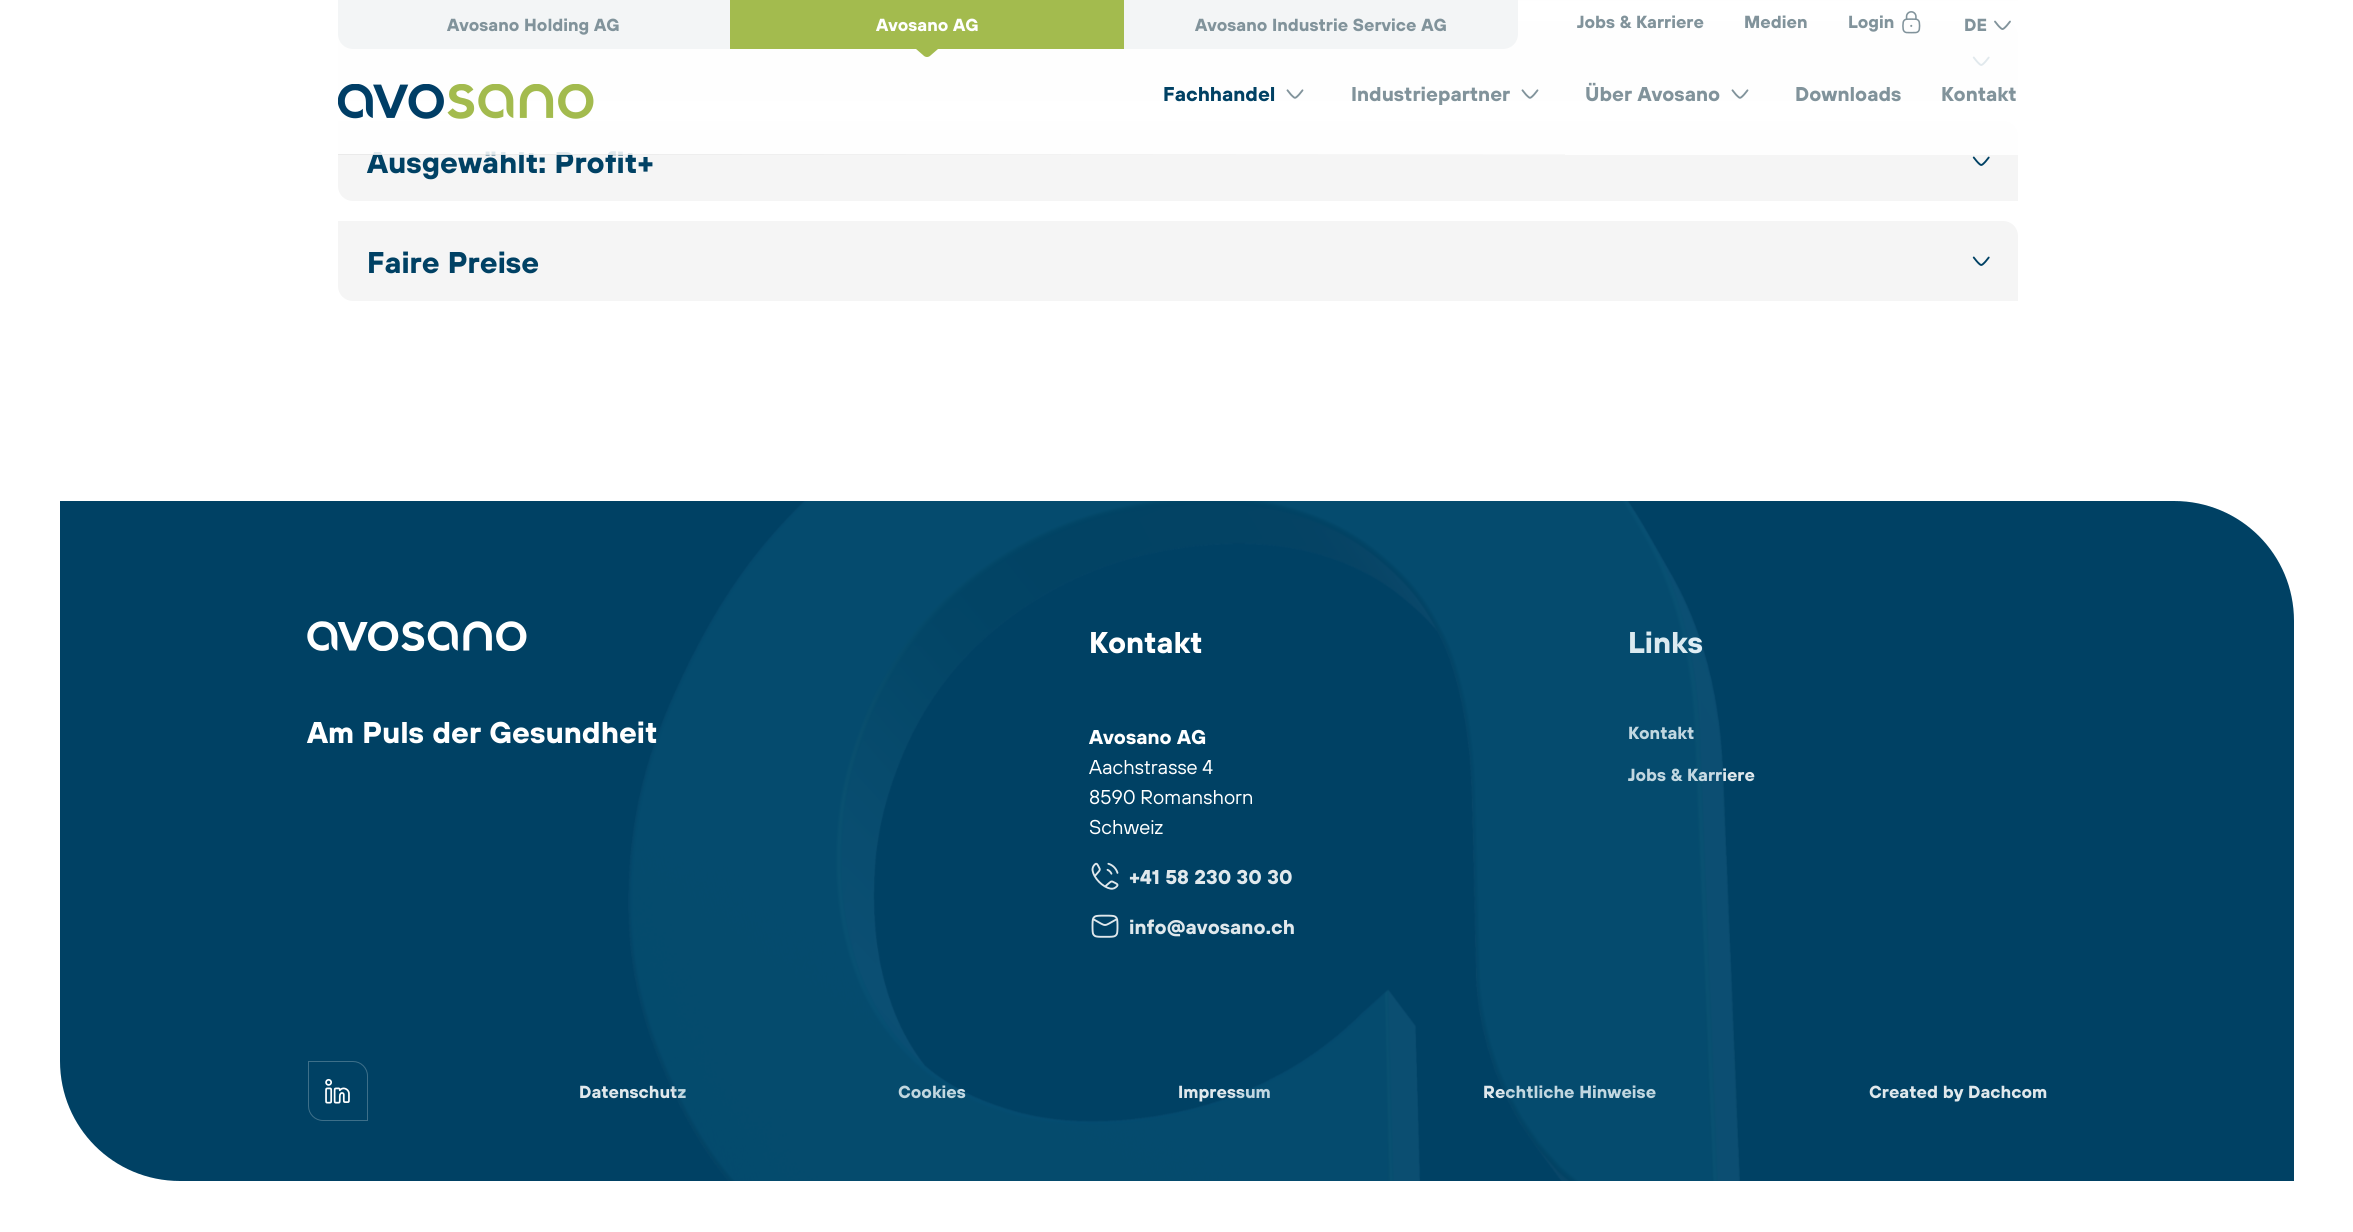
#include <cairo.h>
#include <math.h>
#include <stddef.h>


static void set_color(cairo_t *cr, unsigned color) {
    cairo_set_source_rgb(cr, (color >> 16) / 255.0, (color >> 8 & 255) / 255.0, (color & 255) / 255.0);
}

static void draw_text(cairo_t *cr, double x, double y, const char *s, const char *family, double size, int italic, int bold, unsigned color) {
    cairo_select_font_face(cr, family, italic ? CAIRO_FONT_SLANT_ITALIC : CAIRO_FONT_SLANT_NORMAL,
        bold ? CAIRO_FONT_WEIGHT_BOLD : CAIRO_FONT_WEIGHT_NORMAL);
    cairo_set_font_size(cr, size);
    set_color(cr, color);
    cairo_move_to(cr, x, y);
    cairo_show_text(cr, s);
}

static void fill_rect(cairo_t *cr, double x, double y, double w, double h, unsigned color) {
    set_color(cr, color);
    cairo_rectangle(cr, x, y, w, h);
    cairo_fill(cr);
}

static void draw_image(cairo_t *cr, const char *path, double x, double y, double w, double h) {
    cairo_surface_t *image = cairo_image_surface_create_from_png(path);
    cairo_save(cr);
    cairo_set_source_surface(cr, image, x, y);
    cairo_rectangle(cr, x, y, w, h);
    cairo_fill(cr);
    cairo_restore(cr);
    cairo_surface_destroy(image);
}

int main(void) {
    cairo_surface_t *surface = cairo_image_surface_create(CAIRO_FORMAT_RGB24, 2353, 1232);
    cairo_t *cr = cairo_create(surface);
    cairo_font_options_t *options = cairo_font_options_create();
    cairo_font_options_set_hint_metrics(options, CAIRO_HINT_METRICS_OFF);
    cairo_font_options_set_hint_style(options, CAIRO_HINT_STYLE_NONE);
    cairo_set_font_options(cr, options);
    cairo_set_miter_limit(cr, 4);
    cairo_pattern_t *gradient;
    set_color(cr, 0xFFFFFF);
    cairo_paint(cr);
    fill_rect(cr, 1518, 0, 500, 1, 0xF5F5F5);
    cairo_new_path(cr);
    cairo_move_to(cr, 338, 21);
    cairo_line_to(cr, 2003, 21);
    cairo_curve_to(cr, 2011.5, 21, 2018, 27.5, 2018, 36);
    cairo_line_to(cr, 2018, 101);
    cairo_line_to(cr, 353, 101);
    cairo_curve_to(cr, 344.5, 101, 338, 94.5, 338, 86);
    cairo_close_path(cr);
    cairo_fill(cr);
    draw_image(cr, "assets/img5.png", 1972, 56, 18, 10);
    cairo_new_path(cr);
    cairo_move_to(cr, 338, 121);
    cairo_line_to(cr, 2003, 121);
    cairo_curve_to(cr, 2011.5, 121, 2018, 127.5, 2018, 136);
    cairo_line_to(cr, 2018, 201);
    cairo_line_to(cr, 353, 201);
    cairo_curve_to(cr, 344.5, 201, 338, 194.5, 338, 186);
    cairo_close_path(cr);
    cairo_fill(cr);
    draw_text(cr, 367, 173, "Ausgewählt: Profit+", "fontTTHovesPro", 30, 0, 1, 0x004164);
    cairo_set_source_rgba(cr, 1, 1, 1, 0.88);
    cairo_rectangle(cr, 338, 0, 1680, 155);
    cairo_fill(cr);
    set_color(cr, 0xF3F5F6);
    cairo_new_path(cr);
    cairo_move_to(cr, 338, 0);
    cairo_line_to(cr, 1518, 0);
    cairo_line_to(cr, 1518, 34);
    cairo_curve_to(cr, 1518, 42.5, 1511.5, 49, 1503, 49);
    cairo_line_to(cr, 353, 49);
    cairo_curve_to(cr, 344.5, 49, 338, 42.5, 338, 34);
    cairo_close_path(cr);
    cairo_fill(cr);
    draw_text(cr, 447, 31, "Avosano Holding AG", "fontTTHovesPro", 17.5, 0, 1, 0x81939B);
    fill_rect(cr, 730, 0, 394, 49, 0xA3BB4E);
    draw_text(cr, 876, 31, "Avosano AG", "fontTTHovesPro", 17.5, 0, 1, 0xFFFFFF);
    set_color(cr, 0xA3BB4E);
    cairo_new_path(cr);
    cairo_move_to(cr, 930.5, 55.5);
    cairo_curve_to(cr, 928.5, 57.5, 925.5, 57.5, 923.5, 55.5);
    cairo_line_to(cr, 916, 49);
    cairo_line_to(cr, 938, 49);
    cairo_close_path(cr);
    cairo_fill(cr);
    draw_text(cr, 1195, 31, "Avosano Industrie Service AG", "fontTTHovesPro", 17.5, 0, 1, 0x81939B);
    draw_text(cr, 1577, 28, "Jobs & Karriere", "fontTTHovesPro", 17.5, 0, 1, 0x81939B);
    draw_text(cr, 1744, 28, "Medien", "fontTTHovesPro", 17.5, 0, 1, 0x81939B);
    draw_text(cr, 1848, 28, "Login", "fontTTHovesPro", 17.5, 0, 1, 0x81939B);
    draw_image(cr, "assets/img1.png", 1902, 11, 19, 23);
    draw_text(cr, 1964, 31, "DE", "fontTTHovesPro", 17.5, 0, 1, 0x81939B);
    draw_image(cr, "assets/img2.png", 1994, 20, 17, 10);
    draw_image(cr, "assets/img3.png", 338, 84, 256, 35);
    draw_text(cr, 1163, 101, "Fachhandel", "fontTTHovesPro", 20, 0, 1, 0x004164);
    draw_image(cr, "assets/img4.png", 1286, 89, 18, 10);
    draw_text(cr, 1351, 101, "Industriepartner", "fontTTHovesPro", 20, 0, 1, 0x81939B);
    draw_image(cr, "assets/img4.png", 1521, 89, 18, 10);
    draw_text(cr, 1585, 101, "Über Avosano", "fontTTHovesPro", 20, 0, 1, 0x81939B);
    draw_image(cr, "assets/img4.png", 1731, 89, 18, 10);
    draw_text(cr, 1795, 101, "Downloads", "fontTTHovesPro", 20, 0, 1, 0x81939B);
    draw_text(cr, 1941, 101, "Kontakt", "fontTTHovesPro", 20, 0, 1, 0x81939B);
    gradient = cairo_pattern_create_linear(338, 154, 2018, 154);
    cairo_pattern_add_color_stop_rgba(gradient, 0, 0, 0, 0, 0.08);
    cairo_pattern_add_color_stop_rgba(gradient, 1, 0, 0, 0, 0);
    cairo_set_source(cr, gradient);
    cairo_pattern_destroy(gradient);
    cairo_rectangle(cr, 338, 154, 1227, 1);
    cairo_fill(cr);
    draw_image(cr, "assets/img5.png", 1972, 156, 18, 10);
    set_color(cr, 0xF5F5F5);
    cairo_new_path(cr);
    cairo_move_to(cr, 338, 221);
    cairo_line_to(cr, 2003, 221);
    cairo_curve_to(cr, 2011.5, 221, 2018, 227.5, 2018, 236);
    cairo_line_to(cr, 2018, 301);
    cairo_line_to(cr, 353, 301);
    cairo_curve_to(cr, 344.5, 301, 338, 294.5, 338, 286);
    cairo_close_path(cr);
    cairo_fill(cr);
    draw_text(cr, 367, 273, "Faire Preise", "fontTTHovesPro", 30, 0, 1, 0x004164);
    draw_image(cr, "assets/img5.png", 1972, 256, 18, 10);
    cairo_new_path(cr);
    cairo_move_to(cr, 60, 501);
    cairo_line_to(cr, 2174, 501);
    cairo_curve_to(cr, 2240.5, 501, 2294, 554.5, 2294, 621);
    cairo_line_to(cr, 2294, 1181);
    cairo_line_to(cr, 180, 1181);
    cairo_curve_to(cr, 113.5, 1181, 60, 1127.5, 60, 1061);
    cairo_close_path(cr);
    cairo_fill(cr);
    draw_text(cr, 307, 743, "Am Puls der Gesundheit", "fontTTHovesPro", 30, 0, 1, 0xFFFFFF);
    draw_text(cr, 1089, 653, "Kontakt", "fontTTHovesPro", 30, 0, 1, 0xFFFFFF);
    draw_text(cr, 1089, 744, "Avosano AG", "fontTTHovesPro", 20, 0, 1, 0xFFFFFF);
    draw_text(cr, 1089, 774, "Aachstrasse 4", "fontTTHovesPro", 20, 0, 0, 0xFFFFFF);
    draw_text(cr, 1089, 804, "8590 Romanshorn", "fontTTHovesPro", 20, 0, 0, 0xFFFFFF);
    draw_text(cr, 1089, 834, "Schweiz", "fontTTHovesPro", 20, 0, 0, 0xFFFFFF);
    draw_image(cr, "assets/img8.png", 1091, 862, 28, 28);
    draw_text(cr, 1129, 884, "+41 58 230 30 30", "fontTTHovesPro", 20, 0, 1, 0xE0E8EC);
    draw_image(cr, "assets/img9.png", 1091, 914, 28, 24);
    draw_text(cr, 1129, 934, "info@avosano.ch", "fontTTHovesPro", 20, 0, 1, 0xE0E8EC);
    draw_text(cr, 1628, 653, "Links", "fontTTHovesPro", 30, 0, 1, 0xFFFFFF);
    draw_text(cr, 1628, 739, "Kontakt", "fontTTHovesPro", 17.5, 0, 1, 0xE0E8EC);
    draw_text(cr, 1628, 781, "Jobs & Karriere", "fontTTHovesPro", 17.5, 0, 1, 0xE0E8EC);
    draw_text(cr, 579, 1098, "Datenschutz", "fontTTHovesPro", 17.5, 0, 1, 0xE0E8EC);
    draw_text(cr, 898, 1098, "Cookies", "fontTTHovesPro", 17.5, 0, 1, 0xE0E8EC);
    draw_text(cr, 1178, 1098, "Impressum", "fontTTHovesPro", 17.5, 0, 1, 0xE0E8EC);
    draw_text(cr, 1483, 1098, "Rechtliche Hinweise", "fontTTHovesPro", 17.5, 0, 1, 0xE0E8EC);
    draw_image(cr, "assets/img6.png", 628, 501, 1112, 680);
    draw_image(cr, "assets/img7.png", 307, 621, 220, 30);
    cairo_new_path(cr);
    cairo_move_to(cr, 308.5, 1061.5);
    cairo_line_to(cr, 353, 1061.5);
    cairo_curve_to(cr, 361, 1061.5, 367.5, 1068, 367.5, 1076);
    cairo_line_to(cr, 367.5, 1120.5);
    cairo_line_to(cr, 323, 1120.5);
    cairo_curve_to(cr, 315, 1120.5, 308.5, 1114, 308.5, 1106);
    cairo_close_path(cr);
    set_color(cr, 0x3D6F89);
    cairo_set_line_width(cr, 1);
    cairo_stroke(cr);
    draw_image(cr, "assets/img10.png", 325, 1078, 25, 26);
    draw_text(cr, 1869, 1098, "Created by Dachcom", "fontTTHovesPro", 17.5, 0, 1, 0xE0E8EC);
    cairo_surface_write_to_png(surface, "output.png");
    cairo_font_options_destroy(options);
    cairo_destroy(cr);
    cairo_surface_destroy(surface);
    return 0;
}
